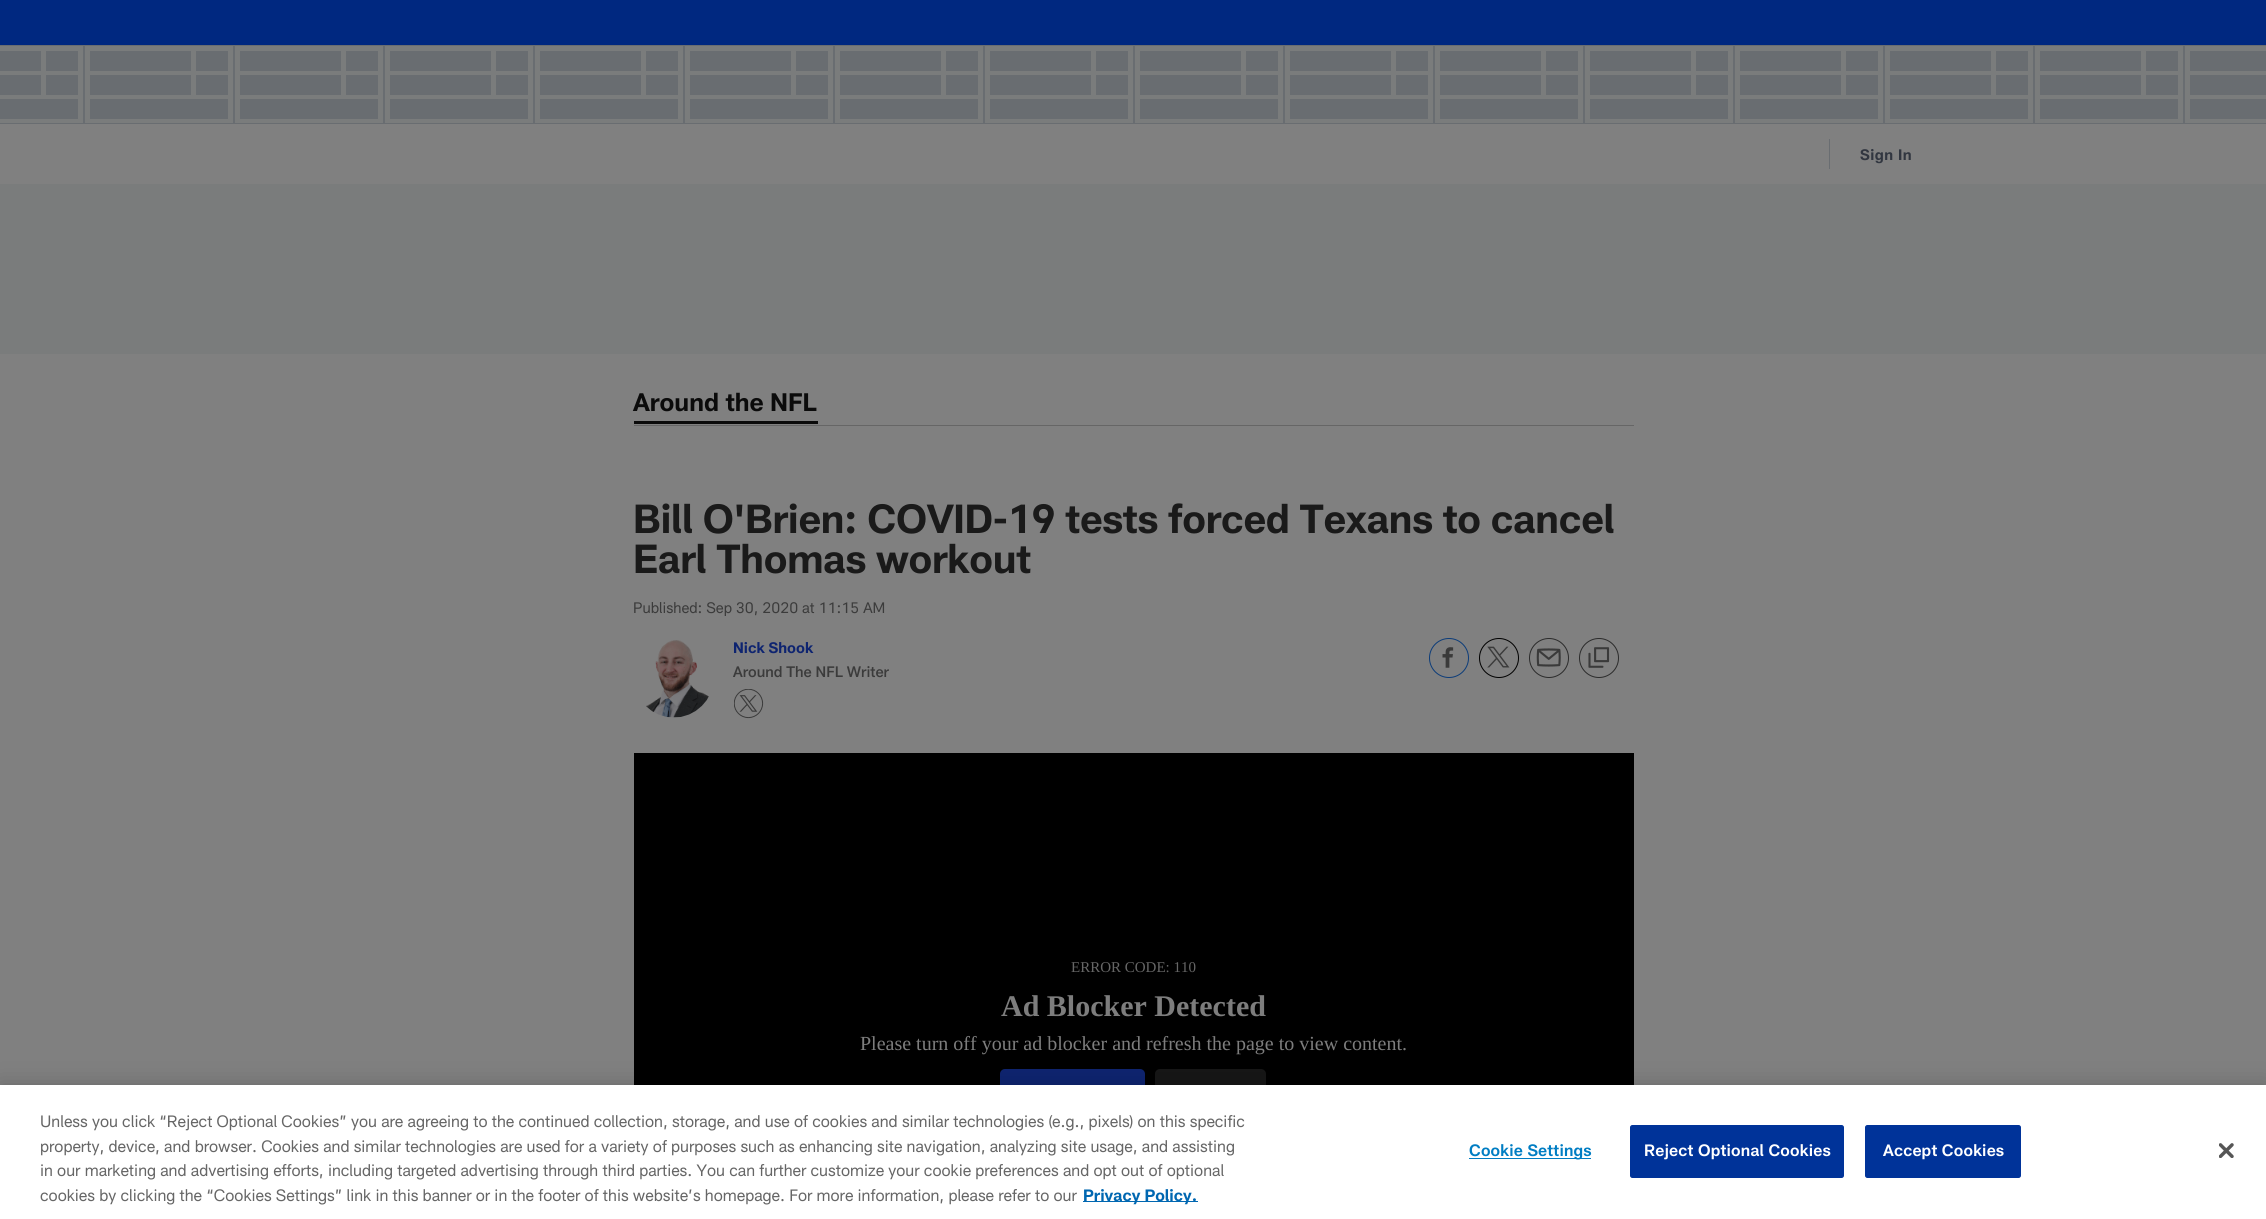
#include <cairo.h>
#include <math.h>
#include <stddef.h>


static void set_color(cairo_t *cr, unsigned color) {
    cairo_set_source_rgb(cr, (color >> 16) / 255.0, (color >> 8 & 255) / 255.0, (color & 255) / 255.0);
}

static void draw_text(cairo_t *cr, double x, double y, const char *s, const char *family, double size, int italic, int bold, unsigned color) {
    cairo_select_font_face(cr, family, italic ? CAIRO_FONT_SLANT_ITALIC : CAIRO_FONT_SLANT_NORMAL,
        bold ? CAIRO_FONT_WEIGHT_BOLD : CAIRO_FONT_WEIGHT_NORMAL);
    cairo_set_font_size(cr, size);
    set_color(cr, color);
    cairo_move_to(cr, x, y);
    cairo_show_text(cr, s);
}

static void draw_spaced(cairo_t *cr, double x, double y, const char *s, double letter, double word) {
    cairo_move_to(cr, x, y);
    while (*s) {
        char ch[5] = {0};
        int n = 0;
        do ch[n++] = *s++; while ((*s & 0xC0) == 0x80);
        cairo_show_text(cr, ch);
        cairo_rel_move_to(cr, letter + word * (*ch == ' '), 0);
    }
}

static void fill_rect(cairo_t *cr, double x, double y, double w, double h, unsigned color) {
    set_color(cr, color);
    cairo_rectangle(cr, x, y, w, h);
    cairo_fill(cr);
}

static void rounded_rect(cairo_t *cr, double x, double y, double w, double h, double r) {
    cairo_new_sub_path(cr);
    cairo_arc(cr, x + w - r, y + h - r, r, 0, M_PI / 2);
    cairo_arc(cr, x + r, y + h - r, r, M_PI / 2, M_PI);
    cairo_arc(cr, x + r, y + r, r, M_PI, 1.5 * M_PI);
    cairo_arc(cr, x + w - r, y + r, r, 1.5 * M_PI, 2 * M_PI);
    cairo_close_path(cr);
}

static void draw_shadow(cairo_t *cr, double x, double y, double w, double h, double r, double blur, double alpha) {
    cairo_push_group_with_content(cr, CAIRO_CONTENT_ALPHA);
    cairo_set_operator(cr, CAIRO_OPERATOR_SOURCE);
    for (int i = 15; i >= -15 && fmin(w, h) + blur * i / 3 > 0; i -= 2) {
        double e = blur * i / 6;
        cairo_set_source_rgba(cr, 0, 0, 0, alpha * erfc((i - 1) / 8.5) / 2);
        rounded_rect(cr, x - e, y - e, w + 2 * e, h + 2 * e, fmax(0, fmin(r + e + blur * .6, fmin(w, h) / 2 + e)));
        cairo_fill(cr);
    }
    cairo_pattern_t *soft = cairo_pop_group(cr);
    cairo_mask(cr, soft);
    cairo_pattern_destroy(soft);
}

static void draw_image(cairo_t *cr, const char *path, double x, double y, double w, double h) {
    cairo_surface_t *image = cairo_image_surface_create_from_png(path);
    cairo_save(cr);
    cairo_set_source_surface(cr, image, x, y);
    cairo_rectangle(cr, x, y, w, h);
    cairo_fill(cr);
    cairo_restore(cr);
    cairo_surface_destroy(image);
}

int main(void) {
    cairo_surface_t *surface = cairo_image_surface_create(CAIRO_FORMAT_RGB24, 2266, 1219);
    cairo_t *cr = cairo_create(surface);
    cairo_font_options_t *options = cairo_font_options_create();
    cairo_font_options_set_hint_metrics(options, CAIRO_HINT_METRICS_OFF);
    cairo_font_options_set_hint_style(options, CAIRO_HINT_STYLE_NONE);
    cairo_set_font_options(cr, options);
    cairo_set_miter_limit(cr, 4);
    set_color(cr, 0x7A7C7C);
    cairo_paint(cr);
    fill_rect(cr, 0, 124, 2266, 60, 0x808080);
    fill_rect(cr, 0, 0, 2266, 45, 0x002880);
    cairo_rectangle(cr, -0.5, 45.5, 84, 78);
    set_color(cr, 0x696D71);
    cairo_set_line_width(cr, 1);
    cairo_stroke(cr);
    fill_rect(cr, 0, 51, 41, 20, 0x696D71);
    fill_rect(cr, 46, 51, 32, 20, 0x696D71);
    fill_rect(cr, 0, 75, 41, 20, 0x696D71);
    fill_rect(cr, 46, 75, 32, 20, 0x696D71);
    fill_rect(cr, 0, 99, 78, 20, 0x696D71);
    cairo_rectangle(cr, 84.5, 45.5, 149, 78);
    cairo_stroke(cr);
    fill_rect(cr, 90, 51, 101, 20, 0x696D71);
    fill_rect(cr, 196, 51, 32, 20, 0x696D71);
    fill_rect(cr, 90, 75, 101, 20, 0x696D71);
    fill_rect(cr, 196, 75, 32, 20, 0x696D71);
    fill_rect(cr, 90, 99, 138, 20, 0x696D71);
    cairo_rectangle(cr, 234.5, 45.5, 149, 78);
    cairo_stroke(cr);
    fill_rect(cr, 240, 51, 101, 20, 0x696D71);
    fill_rect(cr, 346, 51, 32, 20, 0x696D71);
    fill_rect(cr, 240, 75, 101, 20, 0x696D71);
    fill_rect(cr, 346, 75, 32, 20, 0x696D71);
    fill_rect(cr, 240, 99, 138, 20, 0x696D71);
    cairo_rectangle(cr, 384.5, 45.5, 149, 78);
    cairo_stroke(cr);
    fill_rect(cr, 390, 51, 101, 20, 0x696D71);
    fill_rect(cr, 496, 51, 32, 20, 0x696D71);
    fill_rect(cr, 390, 75, 101, 20, 0x696D71);
    fill_rect(cr, 496, 75, 32, 20, 0x696D71);
    fill_rect(cr, 390, 99, 138, 20, 0x696D71);
    cairo_rectangle(cr, 534.5, 45.5, 149, 78);
    cairo_stroke(cr);
    fill_rect(cr, 540, 51, 101, 20, 0x696D71);
    fill_rect(cr, 646, 51, 32, 20, 0x696D71);
    fill_rect(cr, 540, 75, 101, 20, 0x696D71);
    fill_rect(cr, 646, 75, 32, 20, 0x696D71);
    fill_rect(cr, 540, 99, 138, 20, 0x696D71);
    cairo_rectangle(cr, 684.5, 45.5, 149, 78);
    cairo_stroke(cr);
    fill_rect(cr, 690, 51, 101, 20, 0x696D71);
    fill_rect(cr, 796, 51, 32, 20, 0x696D71);
    fill_rect(cr, 690, 75, 101, 20, 0x696D71);
    fill_rect(cr, 796, 75, 32, 20, 0x696D71);
    fill_rect(cr, 690, 99, 138, 20, 0x696D71);
    cairo_rectangle(cr, 834.5, 45.5, 149, 78);
    cairo_stroke(cr);
    fill_rect(cr, 840, 51, 101, 20, 0x696D71);
    fill_rect(cr, 946, 51, 32, 20, 0x696D71);
    fill_rect(cr, 840, 75, 101, 20, 0x696D71);
    fill_rect(cr, 946, 75, 32, 20, 0x696D71);
    fill_rect(cr, 840, 99, 138, 20, 0x696D71);
    cairo_rectangle(cr, 984.5, 45.5, 149, 78);
    cairo_stroke(cr);
    fill_rect(cr, 990, 51, 101, 20, 0x696D71);
    fill_rect(cr, 1096, 51, 32, 20, 0x696D71);
    fill_rect(cr, 990, 75, 101, 20, 0x696D71);
    fill_rect(cr, 1096, 75, 32, 20, 0x696D71);
    fill_rect(cr, 990, 99, 138, 20, 0x696D71);
    cairo_rectangle(cr, 1134.5, 45.5, 149, 78);
    cairo_stroke(cr);
    fill_rect(cr, 1140, 51, 101, 20, 0x696D71);
    fill_rect(cr, 1246, 51, 32, 20, 0x696D71);
    fill_rect(cr, 1140, 75, 101, 20, 0x696D71);
    fill_rect(cr, 1246, 75, 32, 20, 0x696D71);
    fill_rect(cr, 1140, 99, 138, 20, 0x696D71);
    cairo_rectangle(cr, 1284.5, 45.5, 149, 78);
    cairo_stroke(cr);
    fill_rect(cr, 1290, 51, 101, 20, 0x696D71);
    fill_rect(cr, 1396, 51, 32, 20, 0x696D71);
    fill_rect(cr, 1290, 75, 101, 20, 0x696D71);
    fill_rect(cr, 1396, 75, 32, 20, 0x696D71);
    fill_rect(cr, 1290, 99, 138, 20, 0x696D71);
    cairo_rectangle(cr, 1434.5, 45.5, 149, 78);
    cairo_stroke(cr);
    fill_rect(cr, 1440, 51, 101, 20, 0x696D71);
    fill_rect(cr, 1546, 51, 32, 20, 0x696D71);
    fill_rect(cr, 1440, 75, 101, 20, 0x696D71);
    fill_rect(cr, 1546, 75, 32, 20, 0x696D71);
    fill_rect(cr, 1440, 99, 138, 20, 0x696D71);
    cairo_rectangle(cr, 1584.5, 45.5, 149, 78);
    cairo_stroke(cr);
    fill_rect(cr, 1590, 51, 101, 20, 0x696D71);
    fill_rect(cr, 1696, 51, 32, 20, 0x696D71);
    fill_rect(cr, 1590, 75, 101, 20, 0x696D71);
    fill_rect(cr, 1696, 75, 32, 20, 0x696D71);
    fill_rect(cr, 1590, 99, 138, 20, 0x696D71);
    cairo_rectangle(cr, 1734.5, 45.5, 149, 78);
    cairo_stroke(cr);
    fill_rect(cr, 1740, 51, 101, 20, 0x696D71);
    fill_rect(cr, 1846, 51, 32, 20, 0x696D71);
    fill_rect(cr, 1740, 75, 101, 20, 0x696D71);
    fill_rect(cr, 1846, 75, 32, 20, 0x696D71);
    fill_rect(cr, 1740, 99, 138, 20, 0x696D71);
    cairo_rectangle(cr, 1884.5, 45.5, 149, 78);
    cairo_stroke(cr);
    fill_rect(cr, 1890, 51, 101, 20, 0x696D71);
    fill_rect(cr, 1996, 51, 32, 20, 0x696D71);
    fill_rect(cr, 1890, 75, 101, 20, 0x696D71);
    fill_rect(cr, 1996, 75, 32, 20, 0x696D71);
    fill_rect(cr, 1890, 99, 138, 20, 0x696D71);
    cairo_rectangle(cr, 2034.5, 45.5, 149, 78);
    cairo_stroke(cr);
    fill_rect(cr, 2040, 51, 101, 20, 0x696D71);
    fill_rect(cr, 2146, 51, 32, 20, 0x696D71);
    fill_rect(cr, 2040, 75, 101, 20, 0x696D71);
    fill_rect(cr, 2146, 75, 32, 20, 0x696D71);
    fill_rect(cr, 2040, 99, 138, 20, 0x696D71);
    cairo_rectangle(cr, 2184.5, 45.5, 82, 78);
    cairo_stroke(cr);
    fill_rect(cr, 2190, 51, 76, 20, 0x696D71);
    fill_rect(cr, 2190, 75, 76, 20, 0x696D71);
    fill_rect(cr, 2190, 99, 76, 20, 0x696D71);
    fill_rect(cr, 1829, 139, 1, 30, 0x696D71);
    cairo_select_font_face(cr, "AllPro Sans", CAIRO_FONT_SLANT_NORMAL, CAIRO_FONT_WEIGHT_BOLD);
    cairo_set_font_size(cr, 15);
    set_color(cr, 0x313640);
    draw_spaced(cr, 1860, 160, "Sign In", 0.5, 0);
    fill_rect(cr, 0, 354, 2266, 731, 0x808080);
    fill_rect(cr, 634, 425, 1000, 1, 0x666666);
    fill_rect(cr, 634, 421, 184, 3, 0x0B0B0B);
    draw_text(cr, 633, 411, "Around the NFL", "AllPro Sans", 25, 0, 1, 0x0B0B0B);
    cairo_set_font_size(cr, 40);
    set_color(cr, 0x1A1A1A);
    draw_spaced(cr, 633, 533, "Bill O'Brien: COVID-19 tests forced Texans to cancel", -0.25, 0);
    draw_spaced(cr, 633, 573, "Earl Thomas workout", -0.25, 0);
    draw_text(cr, 633, 613, "Published: Sep 30, 2020 at 11:15 AM", "AllPro Sans", 15, 0, 0, 0x3B3B3B);
    draw_image(cr, "assets/img1.png", 646, 640, 63, 78);
    draw_text(cr, 733, 653, "Nick Shook", "AllPro Sans", 15, 0, 1, 0x0E2470);
    draw_text(cr, 733, 677, "Around The NFL Writer", "AllPro Sans Medium", 15, 0, 0, 0x3B3B3B);
    draw_image(cr, "assets/img2.png", 734, 689, 30, 30);
    cairo_arc(cr, 1449, 658, 19.5, 0, 2 * M_PI);
    set_color(cr, 0x0C3C79);
    cairo_stroke(cr);
    draw_image(cr, "assets/img3.png", 1442, 647, 12, 21);
    cairo_arc(cr, 1499, 658, 19.5, 0, 2 * M_PI);
    set_color(cr, 0x000000);
    cairo_stroke(cr);
    draw_image(cr, "assets/img4.png", 1487, 646, 23, 22);
    cairo_arc(cr, 1549, 658, 19.5, 0, 2 * M_PI);
    set_color(cr, 0x2B2B2B);
    cairo_stroke(cr);
    draw_image(cr, "assets/img5.png", 1536, 648, 25, 19);
    cairo_arc(cr, 1599, 658, 19.5, 0, 2 * M_PI);
    cairo_stroke(cr);
    draw_image(cr, "assets/img6.png", 1588, 647, 22, 21);
    fill_rect(cr, 634, 753, 1000, 332, 0x000000);
    draw_text(cr, 1071, 972, "ERROR CODE: 110", "Liberation Serif", 15, 0, 0, 0x666666);
    draw_text(cr, 1001, 1016, "Ad Blocker Detected", "Liberation Serif", 30, 0, 1, 0x7D7D7D);
    draw_text(cr, 860, 1050, "Please turn off your ad blocker and refresh the page to view content.", "Liberation Serif", 20, 0, 0, 0x7D7D7D);
    set_color(cr, 0x0E2470);
    rounded_rect(cr, 1000, 1069, 145, 44, 5);
    cairo_fill(cr);
    set_color(cr, 0x161616);
    rounded_rect(cr, 1155, 1069, 111, 44, 5);
    cairo_fill(cr);
    set_color(cr, 0x000000);
    draw_shadow(cr, 0, 1085, 2266, 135, 0, 11, 0.2);
    fill_rect(cr, 0, 1085, 2266, 134, 0xFFFFFF);
    draw_text(cr, 40, 1127, "Unless you click “Reject Optional Cookies” you are agreeing to the continued collection, storage, and use of cookies and similar technologies (e.g., pixels) on this specific", "AllPro Sans", 16.25, 0, 0, 0x666666);
    draw_text(cr, 40, 1152, "property, device, and browser. Cookies and similar technologies are used for a variety of purposes such as enhancing site navigation, analyzing site usage, and assisting", "AllPro Sans", 16.25, 0, 0, 0x666666);
    draw_text(cr, 40, 1176, "in our marketing and advertising efforts, including targeted advertising through third parties. You can further customize your cookie preferences and opt out of optional", "AllPro Sans", 16.25, 0, 0, 0x666666);
    draw_text(cr, 40, 1201, "cookies by clicking the “Cookies Settings” link in this banner or in the footer of this website’s homepage. For more information, please refer to our", "AllPro Sans", 16.25, 0, 0, 0x666666);
    fill_rect(cr, 1083, 1201, 115, 1, 0x0067B1);
    draw_text(cr, 1083, 1201, "Privacy Policy.", "AllPro Sans", 16.25, 0, 1, 0x0067B1);
    fill_rect(cr, 1469, 1158, 122, 1, 0x007DC3);
    cairo_select_font_face(cr, "AllPro Sans SemiBold", CAIRO_FONT_SLANT_NORMAL, CAIRO_FONT_WEIGHT_NORMAL);
    draw_spaced(cr, 1469, 1156, "Cookie Settings", 0.2, 0);
    set_color(cr, 0x003399);
    rounded_rect(cr, 1630.5, 1125.5, 213, 52, 2);
    cairo_fill_preserve(cr);
    cairo_stroke(cr);
    set_color(cr, 0xFFFFFF);
    draw_spaced(cr, 1644, 1156, "Reject Optional Cookies", 0.2, 0);
    set_color(cr, 0x003399);
    rounded_rect(cr, 1865.5, 1125.5, 155, 52, 2);
    cairo_fill_preserve(cr);
    cairo_stroke(cr);
    set_color(cr, 0xFFFFFF);
    draw_spaced(cr, 1883, 1156, "Accept Cookies", 0.2, 0);
    draw_image(cr, "assets/img7.png", 2219, 1143, 15, 15);
    cairo_surface_write_to_png(surface, "output.png");
    cairo_font_options_destroy(options);
    cairo_destroy(cr);
    cairo_surface_destroy(surface);
    return 0;
}
